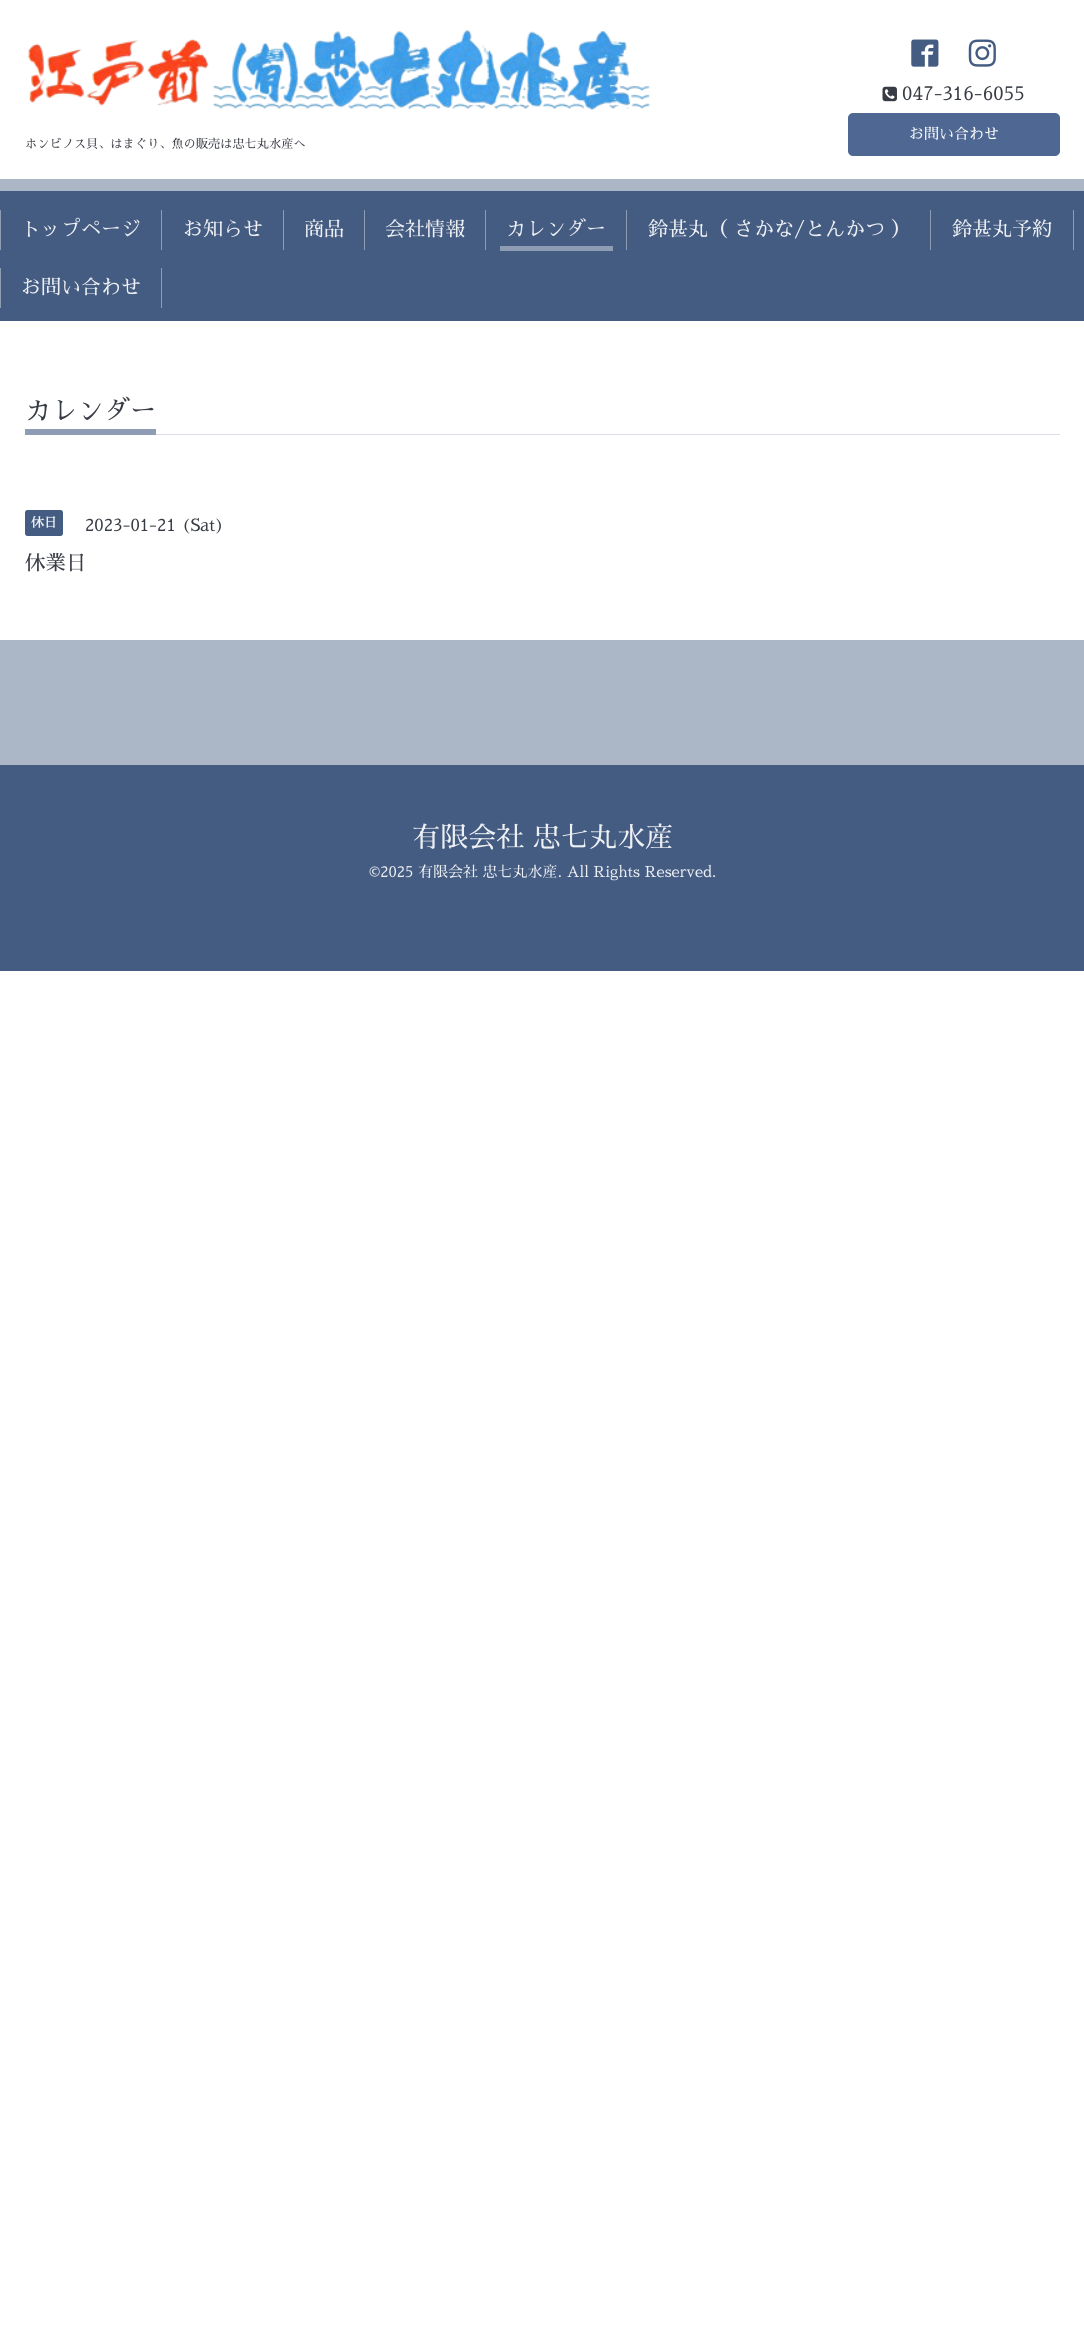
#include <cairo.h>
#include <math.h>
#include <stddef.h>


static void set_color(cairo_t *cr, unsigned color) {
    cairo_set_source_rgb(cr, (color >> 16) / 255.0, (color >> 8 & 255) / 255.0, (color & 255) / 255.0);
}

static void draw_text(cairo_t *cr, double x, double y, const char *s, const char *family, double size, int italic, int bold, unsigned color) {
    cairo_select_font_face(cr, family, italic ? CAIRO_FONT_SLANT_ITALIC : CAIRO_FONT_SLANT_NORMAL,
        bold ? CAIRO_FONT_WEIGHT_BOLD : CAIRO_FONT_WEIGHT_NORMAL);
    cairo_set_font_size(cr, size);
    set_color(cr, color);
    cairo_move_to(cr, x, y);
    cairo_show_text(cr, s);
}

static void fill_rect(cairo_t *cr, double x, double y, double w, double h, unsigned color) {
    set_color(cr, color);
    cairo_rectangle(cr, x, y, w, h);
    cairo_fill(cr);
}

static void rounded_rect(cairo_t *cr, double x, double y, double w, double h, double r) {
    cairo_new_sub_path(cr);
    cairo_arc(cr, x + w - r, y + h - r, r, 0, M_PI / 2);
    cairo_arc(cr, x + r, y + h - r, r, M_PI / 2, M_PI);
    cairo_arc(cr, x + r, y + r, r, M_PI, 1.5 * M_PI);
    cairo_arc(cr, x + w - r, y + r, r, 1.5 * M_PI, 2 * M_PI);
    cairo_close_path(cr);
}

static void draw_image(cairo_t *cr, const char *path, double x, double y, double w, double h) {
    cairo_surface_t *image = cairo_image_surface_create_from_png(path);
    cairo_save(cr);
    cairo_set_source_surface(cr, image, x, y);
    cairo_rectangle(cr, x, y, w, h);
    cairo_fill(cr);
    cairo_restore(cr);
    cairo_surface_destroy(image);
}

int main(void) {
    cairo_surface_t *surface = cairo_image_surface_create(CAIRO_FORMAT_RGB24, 1084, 2332);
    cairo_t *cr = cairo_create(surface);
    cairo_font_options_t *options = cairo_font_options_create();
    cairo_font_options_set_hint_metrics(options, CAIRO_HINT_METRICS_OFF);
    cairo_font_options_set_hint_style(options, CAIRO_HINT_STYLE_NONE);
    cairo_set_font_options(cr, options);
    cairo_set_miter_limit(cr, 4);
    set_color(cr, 0xFFFFFF);
    cairo_paint(cr);
    draw_image(cr, "assets/img1.png", 911, 39, 28, 28);
    draw_image(cr, "assets/img2.png", 968, 39, 28, 28);
    draw_image(cr, "assets/img3.png", 882, 86, 15, 16);
    draw_text(cr, 902, 100, "047-316-6055", "Sawarabi Mincho", 18.75, 0, 0, 0x373B43);
    set_color(cr, 0x4E6893);
    rounded_rect(cr, 848.5, 113.5, 211, 42, 4.5);
    cairo_fill_preserve(cr);
    cairo_set_line_width(cr, 1);
    cairo_stroke(cr);
    draw_text(cr, 909, 139, "お問い合わせ", "Sawarabi Mincho", 15, 0, 0, 0xFFFFFF);
    draw_image(cr, "assets/img4.png", 27, 29, 623, 82);
    draw_text(cr, 25, 148, "ホンビノス貝、はまぐり、魚の販売は忠七丸水産へ", "Sawarabi Mincho", 12.2, 0, 0, 0x373B43);
    fill_rect(cr, 0, 179, 1084, 12, 0xABB6C7);
    fill_rect(cr, 0, 191, 1084, 130, 0x455C82);
    fill_rect(cr, 161, 210, 1, 40, 0x8F9DB4);
    fill_rect(cr, 0, 210, 1, 40, 0x8F9DB4);
    draw_text(cr, 21, 236, "トップページ", "Sawarabi Mincho", 20, 0, 0, 0xECEFF3);
    fill_rect(cr, 283, 210, 1, 40, 0x8F9DB4);
    draw_text(cr, 183, 236, "お知らせ", "Sawarabi Mincho", 20, 0, 0, 0xECEFF3);
    fill_rect(cr, 364, 210, 1, 40, 0x8F9DB4);
    draw_text(cr, 304, 236, "商品", "Sawarabi Mincho", 20, 0, 0, 0xECEFF3);
    fill_rect(cr, 485, 210, 1, 40, 0x8F9DB4);
    draw_text(cr, 385, 236, "会社情報", "Sawarabi Mincho", 20, 0, 0, 0xECEFF3);
    fill_rect(cr, 626, 210, 1, 40, 0x8F9DB4);
    draw_text(cr, 506, 236, "カレンダー", "Sawarabi Mincho", 20, 0, 0, 0xECEFF3);
    fill_rect(cr, 500, 246, 113, 5, 0x8F9DB4);
    fill_rect(cr, 930, 210, 1, 40, 0x8F9DB4);
    draw_text(cr, 648, 236, "鈴甚丸（ さかな/とんかつ ）", "Sawarabi Mincho", 20, 0, 0, 0xECEFF3);
    fill_rect(cr, 1073, 210, 1, 40, 0x8F9DB4);
    draw_text(cr, 952, 236, "鈴甚丸予約", "Sawarabi Mincho", 20, 0, 0, 0xECEFF3);
    fill_rect(cr, 161, 268, 1, 40, 0x8F9DB4);
    fill_rect(cr, 0, 268, 1, 40, 0x8F9DB4);
    draw_text(cr, 21, 294, "お問い合わせ", "Sawarabi Mincho", 20, 0, 0, 0xECEFF3);
    fill_rect(cr, 156, 434, 904, 1, 0xDADEE6);
    fill_rect(cr, 25, 429, 131, 6, 0x8F9DB4);
    draw_text(cr, 25, 420, "カレンダー", "Sawarabi Mincho", 26.25, 0, 0, 0x373B43);
    set_color(cr, 0x455C82);
    rounded_rect(cr, 25, 510, 38, 26, 2.5);
    cairo_fill(cr);
    draw_text(cr, 31, 527, "休日", "Sawarabi Mincho", 13, 0, 1, 0xECEFF3);
    draw_text(cr, 85, 531, "2023-01-21 (Sat)", "Sawarabi Mincho", 17, 0, 0, 0x373B43);
    draw_text(cr, 25, 570, "休業日", "Sawarabi Mincho", 20.5, 0, 0, 0x373B43);
    fill_rect(cr, 0, 640, 1084, 125, 0xABB6C7);
    fill_rect(cr, 0, 765, 1084, 206, 0x455C82);
    draw_text(cr, 412, 847, "有限会社 忠七丸水産", "Sawarabi Mincho", 28.1, 0, 0, 0xECEFF3);
    draw_text(cr, 369, 877, "©2025 有限会社 忠七丸水産. All Rights Reserved.", "Sawarabi Mincho", 15, 0, 0, 0xECEFF3);
    cairo_surface_write_to_png(surface, "output.png");
    cairo_font_options_destroy(options);
    cairo_destroy(cr);
    cairo_surface_destroy(surface);
    return 0;
}
